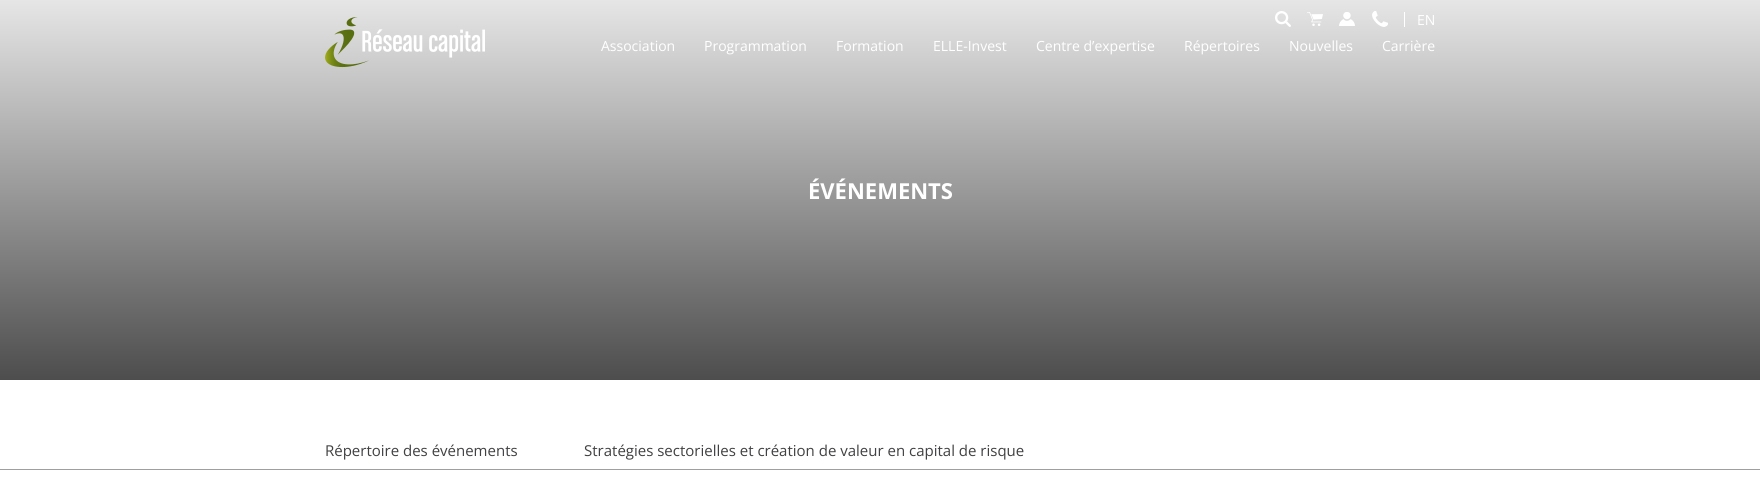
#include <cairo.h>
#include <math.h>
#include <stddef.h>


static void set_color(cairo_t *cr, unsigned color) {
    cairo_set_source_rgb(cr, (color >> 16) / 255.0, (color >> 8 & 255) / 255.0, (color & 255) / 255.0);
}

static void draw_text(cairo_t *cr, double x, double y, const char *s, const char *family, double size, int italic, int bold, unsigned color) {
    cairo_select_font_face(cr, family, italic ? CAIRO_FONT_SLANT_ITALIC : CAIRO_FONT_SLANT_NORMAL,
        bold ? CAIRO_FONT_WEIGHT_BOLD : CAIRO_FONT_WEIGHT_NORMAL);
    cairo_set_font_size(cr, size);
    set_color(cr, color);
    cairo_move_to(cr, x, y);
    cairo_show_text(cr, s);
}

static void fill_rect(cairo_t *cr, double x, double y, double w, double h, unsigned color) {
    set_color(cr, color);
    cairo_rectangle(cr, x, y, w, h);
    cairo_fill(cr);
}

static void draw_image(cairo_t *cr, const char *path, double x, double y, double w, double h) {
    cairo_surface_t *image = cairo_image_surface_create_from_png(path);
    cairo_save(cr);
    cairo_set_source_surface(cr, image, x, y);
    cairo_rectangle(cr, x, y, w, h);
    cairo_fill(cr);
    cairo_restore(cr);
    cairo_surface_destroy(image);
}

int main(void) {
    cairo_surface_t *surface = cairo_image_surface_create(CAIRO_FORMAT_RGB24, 1760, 484);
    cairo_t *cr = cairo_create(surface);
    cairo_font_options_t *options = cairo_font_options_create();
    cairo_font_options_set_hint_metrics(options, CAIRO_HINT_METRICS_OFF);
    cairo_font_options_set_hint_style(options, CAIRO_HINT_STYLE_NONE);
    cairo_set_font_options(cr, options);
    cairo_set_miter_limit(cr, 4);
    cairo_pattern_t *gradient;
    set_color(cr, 0xFFFFFF);
    cairo_paint(cr);
    gradient = cairo_pattern_create_linear(880, 380, 880, 0);
    cairo_pattern_add_color_stop_rgba(gradient, 0, 0.302, 0.302, 0.302, 1);
    cairo_pattern_add_color_stop_rgba(gradient, 1, 0.902, 0.902, 0.902, 1);
    cairo_set_source(cr, gradient);
    cairo_pattern_destroy(gradient);
    cairo_rectangle(cr, 0, 0, 1760, 380);
    cairo_fill(cr);
    draw_image(cr, "assets/img1.png", 325, 17, 160, 51);
    draw_image(cr, "assets/img2.png", 1275, 11, 16, 16);
    draw_image(cr, "assets/img3.png", 1307, 12, 16, 14);
    draw_image(cr, "assets/img4.png", 1339, 12, 16, 14);
    draw_image(cr, "assets/img5.png", 1372, 11, 16, 16);
    fill_rect(cr, 1404, 12, 1, 15, 0xFFFFFF);
    draw_text(cr, 1417, 25, "EN", "Open Sans", 14, 0, 0, 0xFFFFFF);
    draw_text(cr, 601, 51, "Association", "Open Sans", 14, 0, 0, 0xFFFFFF);
    draw_text(cr, 704, 51, "Programmation", "Open Sans", 14, 0, 0, 0xFFFFFF);
    draw_text(cr, 836, 51, "Formation", "Open Sans", 14, 0, 0, 0xFFFFFF);
    draw_text(cr, 933, 51, "ELLE-Invest", "Open Sans", 14, 0, 0, 0xFFFFFF);
    draw_text(cr, 1036, 51, "Centre d’expertise", "Open Sans", 14, 0, 0, 0xFFFFFF);
    draw_text(cr, 1184, 51, "Répertoires", "Open Sans", 14, 0, 0, 0xFFFFFF);
    draw_text(cr, 1289, 51, "Nouvelles", "Open Sans", 14, 0, 0, 0xFFFFFF);
    draw_text(cr, 1382, 51, "Carrière", "Open Sans", 14, 0, 0, 0xFFFFFF);
    draw_text(cr, 808, 199, "ÉVÉNEMENTS", "Open Sans", 22, 0, 1, 0xFFFFFF);
    draw_text(cr, 325, 456, "Répertoire des événements", "Open Sans", 15, 0, 0, 0x414042);
    draw_text(cr, 584, 456, "Stratégies sectorielles et création de valeur en capital de risque", "Open Sans", 15, 0, 0, 0x414042);
    fill_rect(cr, 0, 469, 1760, 1, 0xA09FA0);
    cairo_surface_write_to_png(surface, "output.png");
    cairo_font_options_destroy(options);
    cairo_destroy(cr);
    cairo_surface_destroy(surface);
    return 0;
}
